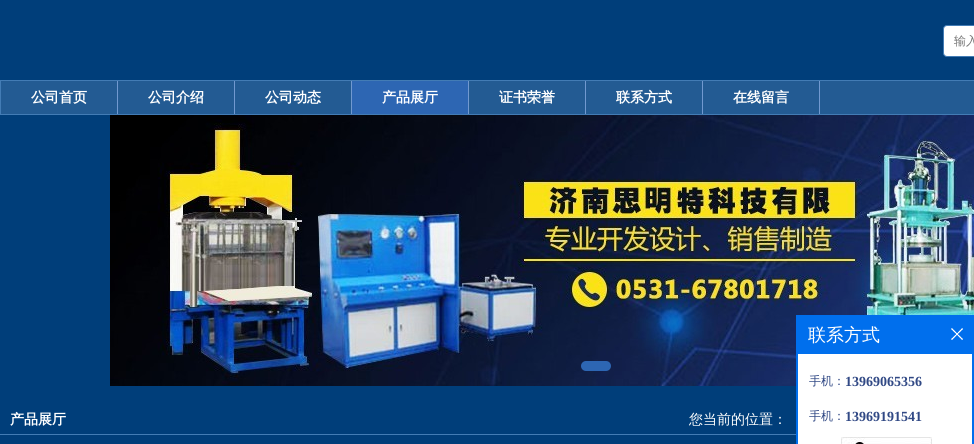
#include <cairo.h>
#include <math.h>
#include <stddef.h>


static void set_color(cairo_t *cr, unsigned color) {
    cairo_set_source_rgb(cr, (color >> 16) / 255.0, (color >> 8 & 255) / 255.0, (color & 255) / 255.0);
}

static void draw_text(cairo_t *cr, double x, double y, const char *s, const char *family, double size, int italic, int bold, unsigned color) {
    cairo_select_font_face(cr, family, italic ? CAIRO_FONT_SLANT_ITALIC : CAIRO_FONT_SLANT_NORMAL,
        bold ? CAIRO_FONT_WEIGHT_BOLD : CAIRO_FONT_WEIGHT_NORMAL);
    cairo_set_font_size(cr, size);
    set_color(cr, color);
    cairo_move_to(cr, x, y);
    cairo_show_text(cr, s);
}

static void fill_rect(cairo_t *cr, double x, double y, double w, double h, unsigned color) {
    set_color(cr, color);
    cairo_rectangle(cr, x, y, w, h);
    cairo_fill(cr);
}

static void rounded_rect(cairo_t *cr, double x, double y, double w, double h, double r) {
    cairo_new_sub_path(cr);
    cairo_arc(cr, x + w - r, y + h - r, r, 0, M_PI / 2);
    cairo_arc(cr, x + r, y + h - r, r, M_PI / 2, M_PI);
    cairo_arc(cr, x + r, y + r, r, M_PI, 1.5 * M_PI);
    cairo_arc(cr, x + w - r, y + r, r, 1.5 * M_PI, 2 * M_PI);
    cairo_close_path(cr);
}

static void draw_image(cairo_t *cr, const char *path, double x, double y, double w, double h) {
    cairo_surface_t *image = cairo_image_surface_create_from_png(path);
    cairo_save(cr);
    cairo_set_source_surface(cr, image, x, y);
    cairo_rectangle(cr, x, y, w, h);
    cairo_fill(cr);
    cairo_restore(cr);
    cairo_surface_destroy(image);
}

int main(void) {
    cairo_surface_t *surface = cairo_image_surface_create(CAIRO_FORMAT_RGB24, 974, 444);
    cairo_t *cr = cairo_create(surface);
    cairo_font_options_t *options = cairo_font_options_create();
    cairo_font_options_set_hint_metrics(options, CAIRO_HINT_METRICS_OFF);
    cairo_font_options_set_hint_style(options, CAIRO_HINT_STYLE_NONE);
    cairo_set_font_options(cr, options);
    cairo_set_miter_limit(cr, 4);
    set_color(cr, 0x003E7A);
    cairo_paint(cr);
    set_color(cr, 0xFFFFFF);
    rounded_rect(cr, 943.5, 25.5, 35, 31, 3.5);
    cairo_fill_preserve(cr);
    set_color(cr, 0x437CB5);
    cairo_set_line_width(cr, 1);
    cairo_stroke(cr);
    draw_text(cr, 954, 45, "输入", "WenQuanYi Zen Hei Medium", 12, 0, 0, 0x757575);
    set_color(cr, 0x235B93);
    cairo_rectangle(cr, 0.5, 80.5, 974, 34);
    cairo_fill_preserve(cr);
    set_color(cr, 0x437CB5);
    cairo_stroke(cr);
    fill_rect(cr, 117, 81, 1, 33, 0x7199D0);
    draw_text(cr, 31, 102, "公司首页", "WenQuanYi Zen Hei", 14, 0, 1, 0xFFFFFF);
    fill_rect(cr, 234, 81, 1, 33, 0x7199D0);
    draw_text(cr, 148, 102, "公司介绍", "WenQuanYi Zen Hei", 14, 0, 1, 0xFFFFFF);
    fill_rect(cr, 351, 81, 1, 33, 0x7199D0);
    draw_text(cr, 265, 102, "公司动态", "WenQuanYi Zen Hei", 14, 0, 1, 0xFFFFFF);
    fill_rect(cr, 352, 81, 116, 33, 0x2D66B3);
    fill_rect(cr, 468, 81, 1, 33, 0x7199D0);
    draw_text(cr, 382, 102, "产品展厅", "WenQuanYi Zen Hei", 14, 0, 1, 0xFFFFFF);
    fill_rect(cr, 585, 81, 1, 33, 0x7199D0);
    draw_text(cr, 499, 102, "证书荣誉", "WenQuanYi Zen Hei", 14, 0, 1, 0xFFFFFF);
    fill_rect(cr, 702, 81, 1, 33, 0x7199D0);
    draw_text(cr, 616, 102, "联系方式", "WenQuanYi Zen Hei", 14, 0, 1, 0xFFFFFF);
    fill_rect(cr, 819, 81, 1, 33, 0x7199D0);
    draw_text(cr, 733, 102, "在线留言", "WenQuanYi Zen Hei", 14, 0, 1, 0xFFFFFF);
    draw_image(cr, "assets/img1.png", 110, 115, 864, 271);
    set_color(cr, 0x2D66B3);
    rounded_rect(cr, 581, 361, 30, 10, 5);
    cairo_fill(cr);
    fill_rect(cr, 0, 434, 796, 1, 0x437CB5);
    draw_text(cr, 10, 424, "产品展厅", "WenQuanYi Zen Hei", 14, 0, 1, 0xFFFFFF);
    draw_text(cr, 689, 424, "您当前的位置：", "WenQuanYi Zen Hei Medium", 14, 0, 0, 0xFFFFFF);
    fill_rect(cr, 796, 315, 178, 129, 0x006FED);
    draw_text(cr, 808, 341, "联系方式", "WenQuanYi Zen Hei Medium", 18, 0, 0, 0xFFFFFF);
    draw_image(cr, "assets/img2.png", 951, 328, 12, 12);
    fill_rect(cr, 798, 354, 174, 90, 0xFFFFFF);
    draw_text(cr, 809, 385, "手机：", "WenQuanYi Zen Hei Medium", 12, 0, 0, 0x314985);
    draw_text(cr, 845, 386, "13969065356", "Liberation Serif", 14, 0, 1, 0x314985);
    draw_text(cr, 809, 420, "手机：", "WenQuanYi Zen Hei Medium", 12, 0, 0, 0x314985);
    draw_text(cr, 845, 421, "13969191541", "Liberation Serif", 14, 0, 1, 0x314985);
    draw_image(cr, "assets/img3.png", 841, 437, 91, 7);
    cairo_surface_write_to_png(surface, "output.png");
    cairo_font_options_destroy(options);
    cairo_destroy(cr);
    cairo_surface_destroy(surface);
    return 0;
}
